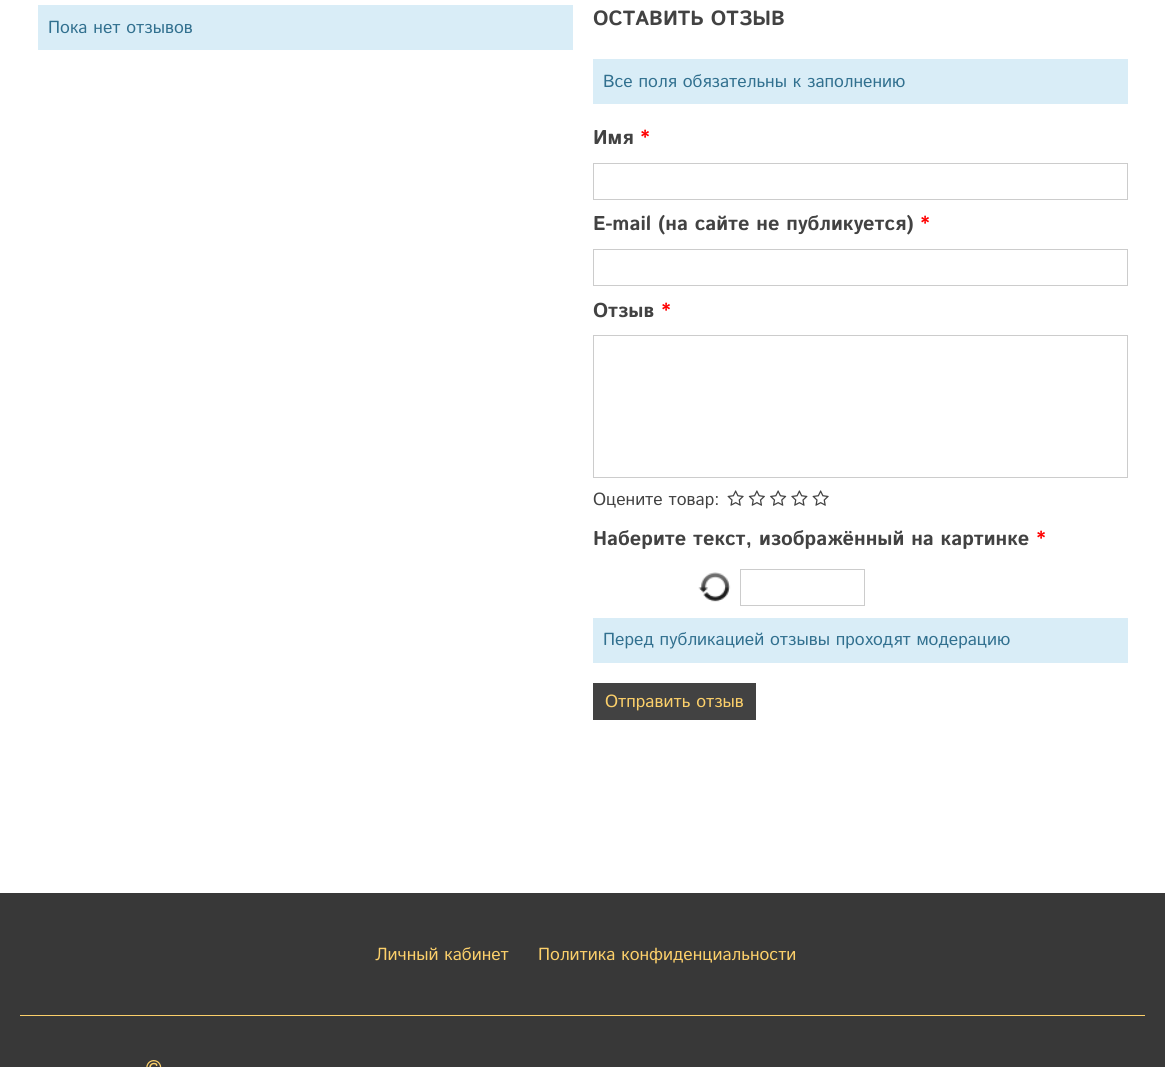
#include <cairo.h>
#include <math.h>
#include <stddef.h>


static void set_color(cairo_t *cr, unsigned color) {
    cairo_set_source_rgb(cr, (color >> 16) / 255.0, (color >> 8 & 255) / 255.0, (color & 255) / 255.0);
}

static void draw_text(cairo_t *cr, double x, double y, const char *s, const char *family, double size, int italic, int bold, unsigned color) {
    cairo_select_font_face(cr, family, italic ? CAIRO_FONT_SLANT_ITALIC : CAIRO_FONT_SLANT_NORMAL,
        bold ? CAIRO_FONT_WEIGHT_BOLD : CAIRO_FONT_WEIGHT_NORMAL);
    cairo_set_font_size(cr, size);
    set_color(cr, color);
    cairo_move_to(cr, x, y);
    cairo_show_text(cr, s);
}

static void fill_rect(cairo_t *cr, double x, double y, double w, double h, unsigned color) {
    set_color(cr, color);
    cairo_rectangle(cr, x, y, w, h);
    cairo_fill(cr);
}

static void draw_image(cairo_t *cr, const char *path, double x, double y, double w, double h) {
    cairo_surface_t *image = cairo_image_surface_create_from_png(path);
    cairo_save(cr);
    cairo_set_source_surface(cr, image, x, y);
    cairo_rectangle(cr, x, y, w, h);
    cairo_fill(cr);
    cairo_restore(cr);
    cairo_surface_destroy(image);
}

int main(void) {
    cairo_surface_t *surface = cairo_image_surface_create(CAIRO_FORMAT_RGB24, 1165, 1067);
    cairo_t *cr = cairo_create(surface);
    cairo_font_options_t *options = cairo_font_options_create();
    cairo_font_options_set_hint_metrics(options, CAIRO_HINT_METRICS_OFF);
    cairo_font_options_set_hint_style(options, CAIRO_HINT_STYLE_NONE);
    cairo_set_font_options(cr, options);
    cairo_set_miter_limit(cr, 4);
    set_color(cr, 0x383838);
    cairo_paint(cr);
    fill_rect(cr, 0, 0, 1165, 893, 0xFFFFFF);
    fill_rect(cr, 38, 5, 535, 45, 0xD9EDF7);
    draw_text(cr, 48, 33, "Пока нет отзывов", "Istok Web", 17.5, 0, 0, 0x31708F);
    draw_text(cr, 593, 25, "ОСТАВИТЬ ОТЗЫВ", "Istok Web", 20.5, 0, 1, 0x424242);
    fill_rect(cr, 593, 59, 535, 45, 0xD9EDF7);
    draw_text(cr, 603, 87, "Все поля обязательны к заполнению", "Istok Web", 17.5, 0, 0, 0x31708F);
    draw_text(cr, 593, 144, "Имя", "Istok Web", 20, 0, 1, 0x424242);
    draw_text(cr, 640, 144, "*", "Istok Web", 20, 0, 1, 0xFF0000);
    cairo_rectangle(cr, 593.5, 163.5, 534, 36);
    set_color(cr, 0xCCCCCC);
    cairo_set_line_width(cr, 1);
    cairo_stroke(cr);
    draw_text(cr, 593, 230, "E-mail (на сайте не публикуется)", "Istok Web", 20, 0, 1, 0x424242);
    draw_text(cr, 920, 230, "*", "Istok Web", 20, 0, 1, 0xFF0000);
    cairo_rectangle(cr, 593.5, 249.5, 534, 36);
    set_color(cr, 0xCCCCCC);
    cairo_stroke(cr);
    draw_text(cr, 593, 317, "Отзыв", "Istok Web", 20, 0, 1, 0x424242);
    draw_text(cr, 661, 317, "*", "Istok Web", 20, 0, 1, 0xFF0000);
    cairo_rectangle(cr, 593.5, 335.5, 534, 142);
    set_color(cr, 0xCCCCCC);
    cairo_stroke(cr);
    draw_text(cr, 593, 505, "Оцените товар:", "Istok Web", 17.5, 0, 0, 0x424242);
    draw_image(cr, "assets/img1.png", 727, 490, 17, 16);
    draw_image(cr, "assets/img2.png", 748, 490, 17, 16);
    draw_image(cr, "assets/img3.png", 770, 490, 17, 16);
    draw_image(cr, "assets/img4.png", 791, 490, 17, 16);
    draw_image(cr, "assets/img1.png", 812, 490, 17, 16);
    draw_text(cr, 593, 545, "Наберите текст, изображённый на картинке", "Istok Web", 20, 0, 1, 0x424242);
    draw_text(cr, 1036, 545, "*", "Istok Web", 20, 0, 1, 0xFF0000);
    draw_image(cr, "assets/img5.png", 698, 572, 33, 30);
    cairo_rectangle(cr, 740.5, 569.5, 124, 36);
    set_color(cr, 0xCCCCCC);
    cairo_stroke(cr);
    fill_rect(cr, 593, 618, 535, 45, 0xD9EDF7);
    draw_text(cr, 603, 645, "Перед публикацией отзывы проходят модерацию", "Istok Web", 17.5, 0, 0, 0x31708F);
    fill_rect(cr, 593, 683, 163, 37, 0x424242);
    draw_text(cr, 605, 707, "Отправить отзыв", "Istok Web", 17.5, 0, 0, 0xFCD06A);
    fill_rect(cr, 20, 1015, 1125, 1, 0xFCD06A);
    draw_text(cr, 375, 960, "Личный кабинет", "Istok Web", 17.5, 0, 0, 0xFCD06A);
    draw_text(cr, 538, 960, "Политика конфиденциальности", "Istok Web", 17.5, 0, 0, 0xFCD06A);
    draw_image(cr, "assets/img6.png", 146, 1060, 16, 7);
    cairo_surface_write_to_png(surface, "output.png");
    cairo_font_options_destroy(options);
    cairo_destroy(cr);
    cairo_surface_destroy(surface);
    return 0;
}
